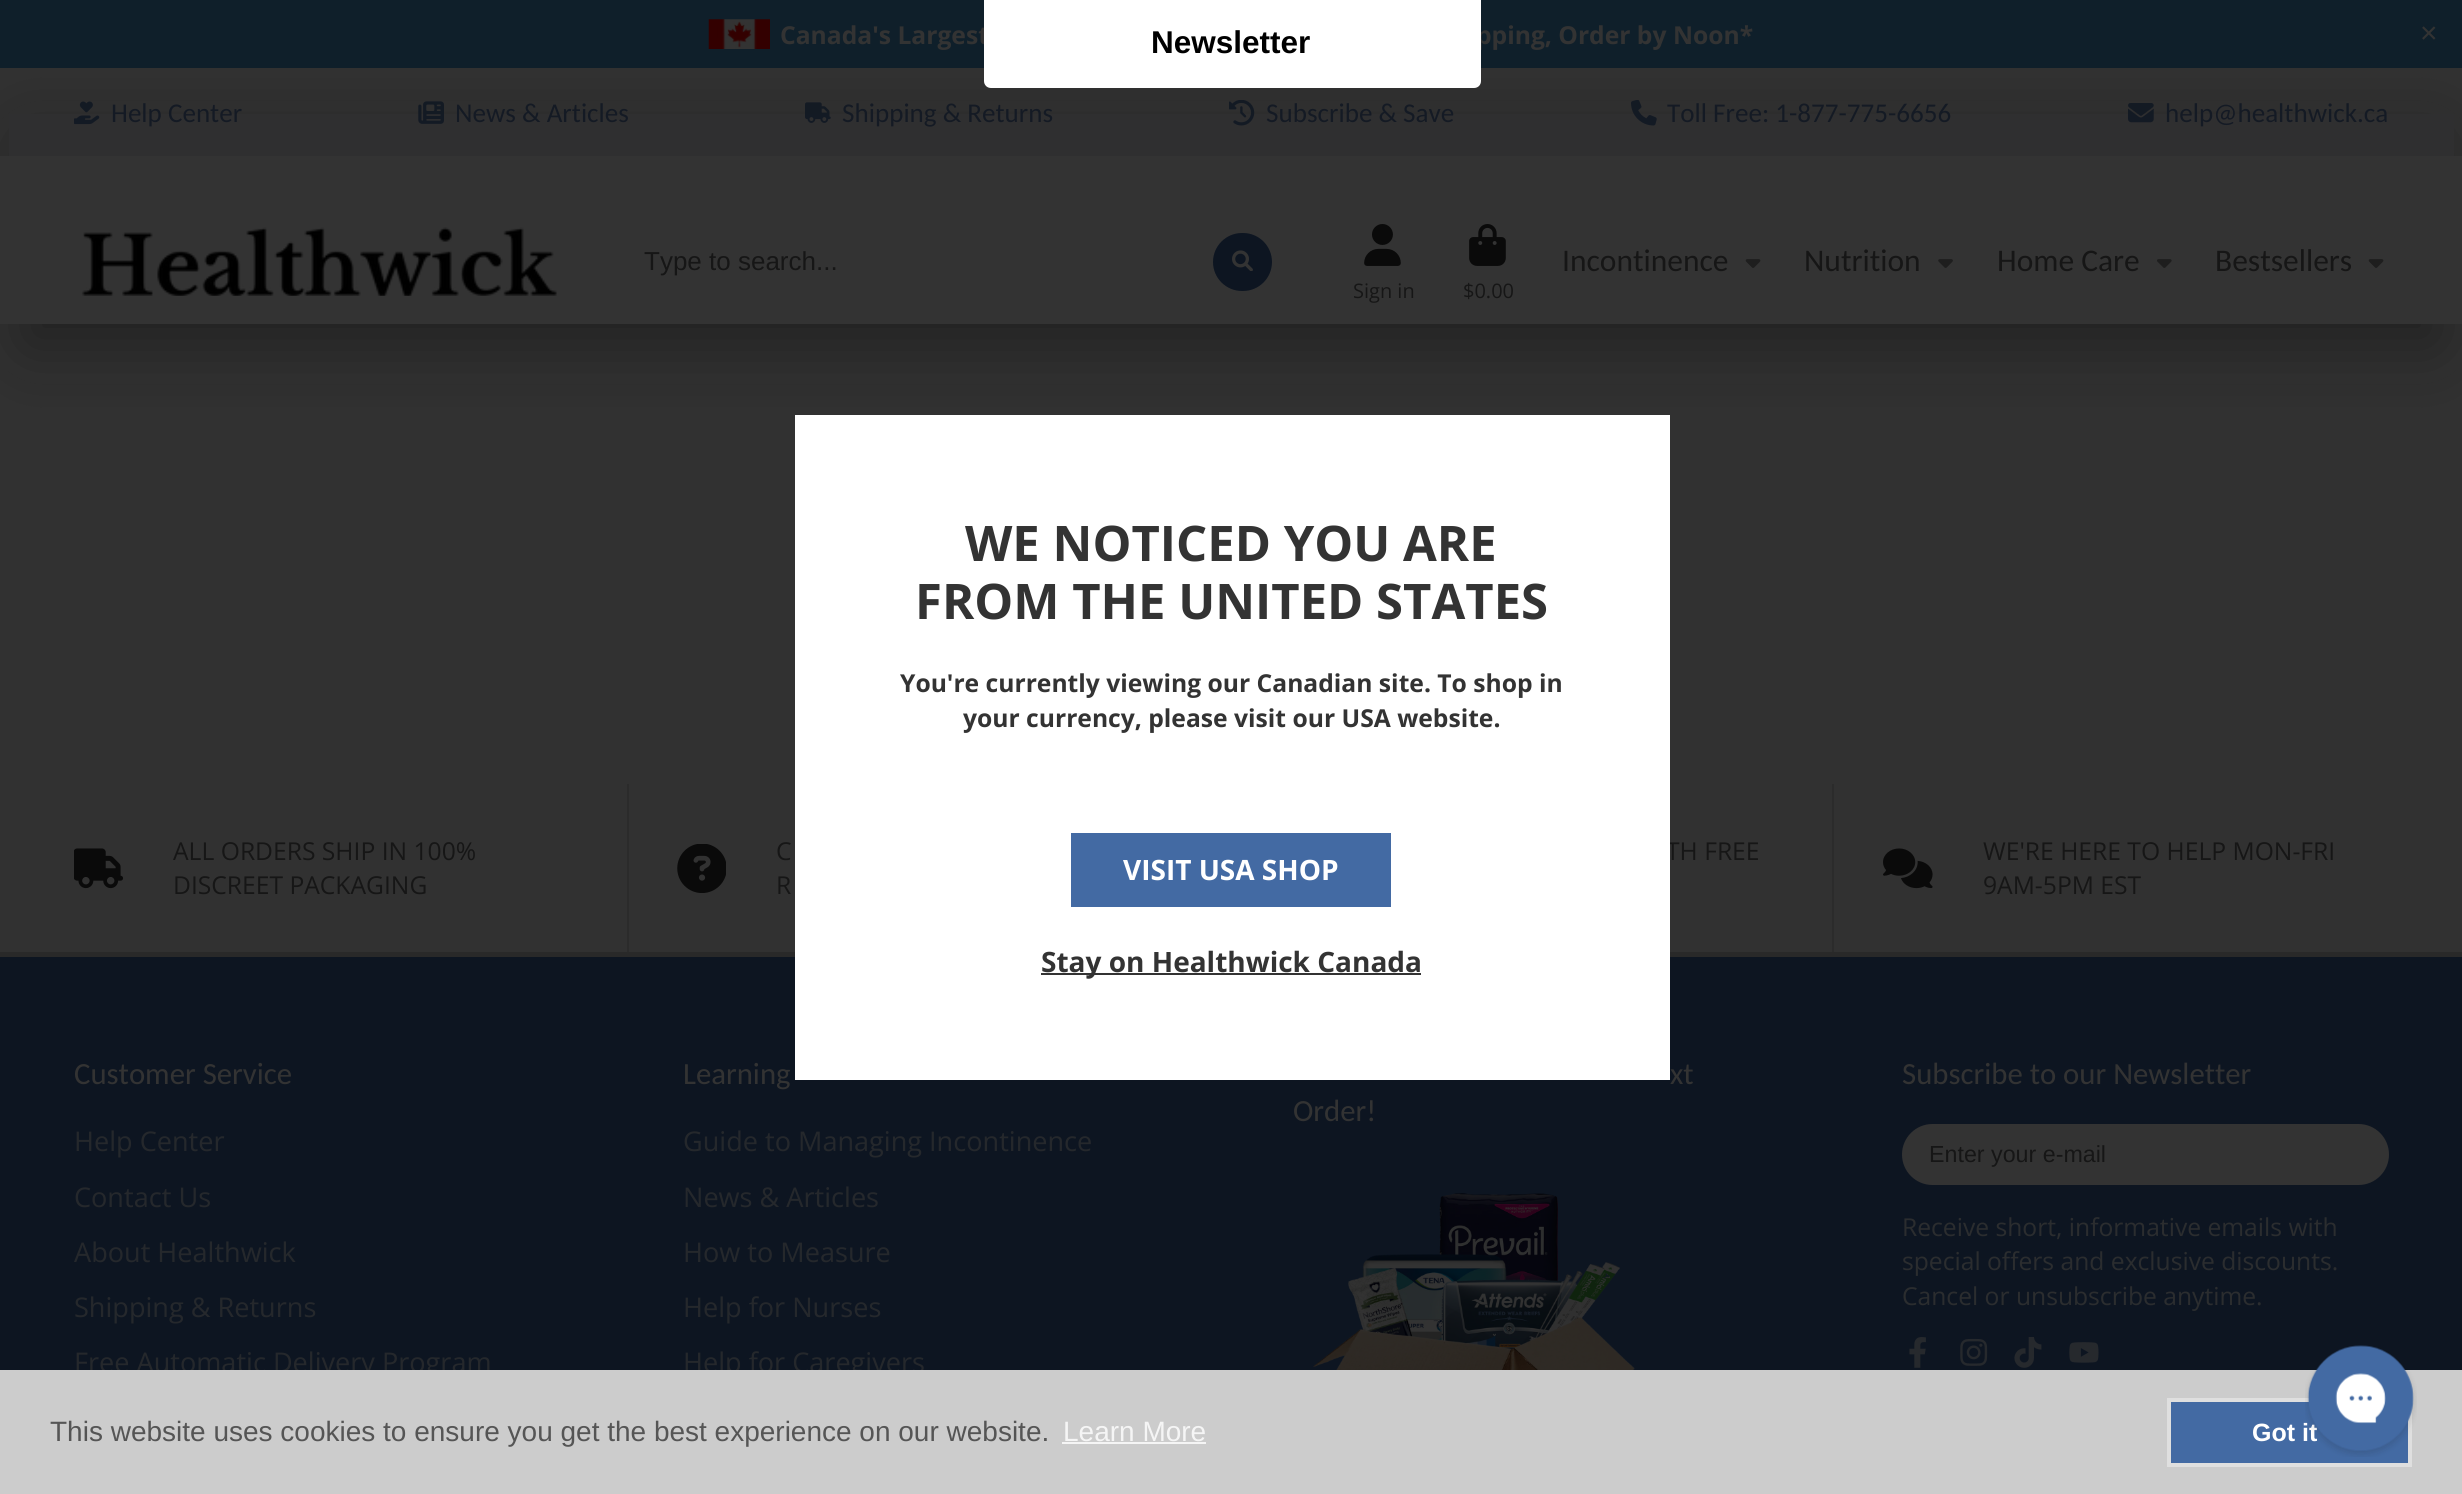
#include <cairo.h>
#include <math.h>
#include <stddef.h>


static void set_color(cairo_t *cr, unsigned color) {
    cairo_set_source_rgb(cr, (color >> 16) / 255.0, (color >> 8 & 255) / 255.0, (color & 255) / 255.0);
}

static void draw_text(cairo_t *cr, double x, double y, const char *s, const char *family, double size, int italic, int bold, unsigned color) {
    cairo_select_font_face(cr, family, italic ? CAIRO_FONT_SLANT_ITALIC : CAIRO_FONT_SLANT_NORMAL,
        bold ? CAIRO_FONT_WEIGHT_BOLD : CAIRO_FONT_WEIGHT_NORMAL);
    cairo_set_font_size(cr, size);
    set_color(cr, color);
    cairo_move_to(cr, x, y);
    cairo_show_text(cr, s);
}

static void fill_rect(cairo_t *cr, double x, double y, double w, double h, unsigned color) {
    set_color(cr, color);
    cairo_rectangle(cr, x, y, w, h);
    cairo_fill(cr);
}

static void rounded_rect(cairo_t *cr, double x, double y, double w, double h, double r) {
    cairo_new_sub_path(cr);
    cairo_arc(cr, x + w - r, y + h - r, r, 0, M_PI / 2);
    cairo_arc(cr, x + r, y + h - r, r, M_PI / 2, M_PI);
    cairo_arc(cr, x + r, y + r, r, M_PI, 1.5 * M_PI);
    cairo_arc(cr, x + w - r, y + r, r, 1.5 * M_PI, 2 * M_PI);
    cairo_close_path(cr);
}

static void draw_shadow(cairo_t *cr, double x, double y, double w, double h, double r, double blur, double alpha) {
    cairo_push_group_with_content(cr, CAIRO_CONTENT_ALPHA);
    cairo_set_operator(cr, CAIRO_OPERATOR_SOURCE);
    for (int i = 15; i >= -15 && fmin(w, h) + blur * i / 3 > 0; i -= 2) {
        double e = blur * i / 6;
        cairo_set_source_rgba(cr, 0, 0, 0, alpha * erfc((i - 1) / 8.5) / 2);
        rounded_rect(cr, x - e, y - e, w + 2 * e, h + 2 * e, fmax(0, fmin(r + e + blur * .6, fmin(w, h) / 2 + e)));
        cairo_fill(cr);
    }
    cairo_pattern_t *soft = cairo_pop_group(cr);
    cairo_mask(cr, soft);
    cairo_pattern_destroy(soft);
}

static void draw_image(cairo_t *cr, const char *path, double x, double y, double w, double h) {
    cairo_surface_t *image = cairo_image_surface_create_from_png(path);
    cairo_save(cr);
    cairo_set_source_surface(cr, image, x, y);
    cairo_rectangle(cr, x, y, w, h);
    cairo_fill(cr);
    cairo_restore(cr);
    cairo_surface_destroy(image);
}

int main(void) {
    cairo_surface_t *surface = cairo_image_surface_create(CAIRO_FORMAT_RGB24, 2462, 1494);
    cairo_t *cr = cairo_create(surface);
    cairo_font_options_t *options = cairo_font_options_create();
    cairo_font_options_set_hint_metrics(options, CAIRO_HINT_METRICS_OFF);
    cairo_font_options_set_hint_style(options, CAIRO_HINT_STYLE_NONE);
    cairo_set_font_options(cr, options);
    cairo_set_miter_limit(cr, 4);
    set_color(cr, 0x313131);
    cairo_paint(cr);
    fill_rect(cr, 0, 0, 2462, 68, 0x0F1F2A);
    draw_image(cr, "assets/img1.png", 708, 19, 62, 30);
    draw_text(cr, 780, 44, "Canada's Largest", "Open Sans", 24.65, 0, 1, 0x333333);
    draw_text(cr, 1476, 44, "pping, Order by Noon*", "Open Sans", 24.65, 0, 1, 0x333333);
    draw_text(cr, 2420, 43, "×", "Liberation Sans", 30, 0, 0, 0x333333);
    set_color(cr, 0x080808);
    draw_shadow(cr, 25, 140, 2413, 205, 0, 34, 0.4);
    set_color(cr, 0xFFFFFF);
    cairo_new_path(cr);
    cairo_move_to(cr, 984, 0);
    cairo_line_to(cr, 1481, 0);
    cairo_line_to(cr, 1481, 81);
    cairo_curve_to(cr, 1481, 85, 1478, 88, 1474, 88);
    cairo_line_to(cr, 991, 88);
    cairo_curve_to(cr, 987, 88, 984, 85, 984, 81);
    cairo_close_path(cr);
    cairo_fill(cr);
    draw_text(cr, 1151, 53, "Newsletter", "Liberation Sans", 31.5, 0, 1, 0x000000);
    fill_rect(cr, 9, 114, 2445, 42, 0x2F2F30);
    draw_image(cr, "assets/img2.png", 74, 101, 26, 24);
    draw_text(cr, 111, 122, "Help Center", "Carlito", 27.1, 0, 0, 0x141A24);
    draw_image(cr, "assets/img3.png", 418, 101, 26, 23);
    draw_text(cr, 455, 122, "News & Articles", "Carlito", 27.1, 0, 0, 0x141A24);
    draw_image(cr, "assets/img4.png", 805, 102, 26, 21);
    draw_text(cr, 842, 122, "Shipping & Returns", "Carlito", 27.1, 0, 0, 0x141A24);
    draw_image(cr, "assets/img5.png", 1229, 100, 26, 26);
    draw_text(cr, 1266, 122, "Subscribe & Save", "Carlito", 27.1, 0, 0, 0x141A24);
    draw_image(cr, "assets/img6.png", 1631, 100, 26, 26);
    draw_text(cr, 1667, 122, "Toll Free: 1-877-775-6656", "Carlito", 27.1, 0, 0, 0x141A24);
    draw_image(cr, "assets/img7.png", 2128, 103, 26, 20);
    draw_text(cr, 2165, 122, "help@healthwick.ca", "Carlito", 27.1, 0, 0, 0x141A24);
    fill_rect(cr, 0, 156, 2462, 168, 0x333333);
    draw_image(cr, "assets/img8.png", 81, 227, 476, 69);
    draw_text(cr, 644, 270, "Type to search...", "Liberation Sans", 26, 0, 0, 0x161616);
    set_color(cr, 0x0D1521);
    rounded_rect(cr, 1213, 233, 59, 58, 29);
    cairo_fill(cr);
    draw_image(cr, "assets/img9.png", 1232, 250, 21, 21);
    draw_text(cr, 1562, 271, "Incontinence", "Carlito", 31.5, 0, 0, 0x161616);
    draw_image(cr, "assets/img10.png", 1745, 259, 16, 9);
    draw_text(cr, 1804, 271, "Nutrition", "Carlito", 31.5, 0, 0, 0x161616);
    draw_image(cr, "assets/img11.png", 1938, 259, 15, 9);
    draw_text(cr, 1997, 271, "Home Care", "Carlito", 31.5, 0, 0, 0x161616);
    draw_image(cr, "assets/img12.png", 2157, 259, 15, 9);
    draw_text(cr, 2215, 271, "Bestsellers", "Carlito", 31.5, 0, 0, 0x161616);
    draw_image(cr, "assets/img10.png", 2368, 259, 16, 9);
    draw_image(cr, "assets/img13.png", 1364, 224, 37, 42);
    draw_text(cr, 1353, 298, "Sign in", "Open Sans", 20, 0, 0, 0x161616);
    draw_image(cr, "assets/img14.png", 1469, 224, 37, 42);
    draw_text(cr, 1463, 298, "$0.00", "Open Sans", 20, 0, 0, 0x161616);
    draw_text(cr, 1666, 860, "TH FREE", "Open Sans", 24.65, 0, 0, 0x161616);
    fill_rect(cr, 0, 957, 2462, 413, 0x0D1521);
    fill_rect(cr, 0, 952, 2462, 5, 0x292929);
    fill_rect(cr, 795, 415, 875, 665, 0xFFFFFF);
    draw_text(cr, 965, 561, "WE NOTICED YOU ARE", "Open Sans", 49, 0, 1, 0x333333);
    draw_text(cr, 915, 619, "FROM THE UNITED STATES", "Open Sans", 49, 0, 1, 0x333333);
    draw_text(cr, 900, 692, "You're currently viewing our Canadian site. To shop in", "Open Sans", 24.65, 0, 1, 0x333333);
    draw_text(cr, 963, 727, "your currency, please visit our USA website.", "Open Sans", 24.65, 0, 1, 0x333333);
    fill_rect(cr, 1071, 833, 320, 74, 0x436AA3);
    draw_text(cr, 1123, 880, "VISIT USA SHOP", "Open Sans", 28, 0, 1, 0xFFFFFF);
    fill_rect(cr, 1041, 973, 380, 2, 0x333333);
    draw_text(cr, 1041, 972, "Stay on Healthwick Canada", "Open Sans", 28, 0, 1, 0x333333);
    draw_image(cr, "assets/img15.png", 74, 848, 50, 41);
    draw_text(cr, 173, 860, "ALL ORDERS SHIP IN 100%", "Open Sans", 24.65, 0, 0, 0x161616);
    draw_text(cr, 173, 894, "DISCREET PACKAGING", "Open Sans", 24.65, 0, 0, 0x161616);
    fill_rect(cr, 627, 784, 2, 168, 0x2B2B2B);
    draw_image(cr, "assets/img16.png", 677, 844, 49, 49);
    draw_text(cr, 776, 860, "C", "Open Sans", 24.65, 0, 0, 0x161616);
    draw_text(cr, 776, 894, "R", "Open Sans", 24.65, 0, 0, 0x161616);
    fill_rect(cr, 1832, 784, 2, 168, 0x2B2B2B);
    draw_image(cr, "assets/img17.png", 1883, 848, 50, 41);
    draw_text(cr, 1983, 860, "WE'RE HERE TO HELP MON-FRI", "Open Sans", 24.65, 0, 0, 0x161616);
    draw_text(cr, 1983, 894, "9AM-5PM EST", "Open Sans", 24.65, 0, 0, 0x161616);
    draw_text(cr, 74, 1084, "Customer Service", "Carlito", 30.75, 0, 0, 0x333333);
    draw_text(cr, 74, 1151, "Help Center", "Open Sans", 27.1, 0, 0, 0x25282C);
    draw_text(cr, 74, 1207, "Contact Us", "Open Sans", 27.1, 0, 0, 0x25282C);
    draw_text(cr, 74, 1262, "About Healthwick", "Open Sans", 27.1, 0, 0, 0x25282C);
    draw_text(cr, 74, 1317, "Shipping & Returns", "Open Sans", 27.1, 0, 0, 0x25282C);
    draw_text(cr, 74, 1372, "Free Automatic Delivery Program", "Open Sans", 27.1, 0, 0, 0x25282C);
    draw_text(cr, 683, 1084, "Learning", "Carlito", 30.75, 0, 0, 0x333333);
    draw_text(cr, 683, 1151, "Guide to Managing Incontinence", "Open Sans", 27.1, 0, 0, 0x25282C);
    draw_text(cr, 683, 1207, "News & Articles", "Open Sans", 27.1, 0, 0, 0x25282C);
    draw_text(cr, 683, 1262, "How to Measure", "Open Sans", 27.1, 0, 0, 0x25282C);
    draw_text(cr, 683, 1317, "Help for Nurses", "Open Sans", 27.1, 0, 0, 0x25282C);
    draw_text(cr, 683, 1372, "Help for Caregivers", "Open Sans", 27.1, 0, 0, 0x25282C);
    draw_text(cr, 1670, 1084, "xt", "Carlito", 30.75, 0, 0, 0x333333);
    draw_text(cr, 1293, 1121, "Order!", "Carlito", 30.75, 0, 0, 0x333333);
    draw_image(cr, "assets/img18.png", 1313, 1193, 322, 177);
    draw_text(cr, 1902, 1084, "Subscribe to our Newsletter", "Carlito", 30.75, 0, 0, 0x333333);
    rounded_rect(cr, 1903, 1125, 485, 59, 29.5);
    cairo_fill_preserve(cr);
    cairo_stroke(cr);
    draw_text(cr, 1929, 1162, "Enter your e-mail", "Liberation Sans", 23.25, 0, 0, 0x161616);
    draw_text(cr, 1902, 1236, "Receive short, informative emails with", "Open Sans", 24.65, 0, 0, 0x2B2D2F);
    draw_text(cr, 1902, 1270, "special offers and exclusive discounts.", "Open Sans", 24.65, 0, 0, 0x2B2D2F);
    draw_text(cr, 1902, 1305, "Cancel or unsubscribe anytime.", "Open Sans", 24.65, 0, 0, 0x2B2D2F);
    draw_image(cr, "assets/img19.png", 1909, 1337, 17, 31);
    draw_image(cr, "assets/img20.png", 1960, 1338, 28, 28);
    draw_image(cr, "assets/img21.png", 2014, 1337, 28, 31);
    draw_image(cr, "assets/img22.png", 2069, 1342, 30, 21);
    fill_rect(cr, 0, 1370, 2462, 124, 0xCCCCCC);
    draw_text(cr, 50, 1441, "This website uses cookies to ensure you get the best experience on our website.", "Liberation Sans", 28, 0, 0, 0x555555);
    draw_text(cr, 1063, 1441, "Learn More", "Liberation Sans", 28, 0, 0, 0xF5F5F5);
    fill_rect(cr, 1062, 1442, 144, 2, 0xF5F5F5);
    set_color(cr, 0x436AA3);
    cairo_rectangle(cr, 2169, 1400, 241, 65);
    cairo_fill_preserve(cr);
    set_color(cr, 0xDFDFDF);
    cairo_set_line_width(cr, 4);
    cairo_stroke(cr);
    draw_text(cr, 2252, 1441, "Got it", "Liberation Sans", 25, 0, 1, 0xFFFFFF);
    draw_image(cr, "assets/img23.png", 2305, 1345, 112, 112);
    cairo_surface_write_to_png(surface, "output.png");
    cairo_font_options_destroy(options);
    cairo_destroy(cr);
    cairo_surface_destroy(surface);
    return 0;
}
